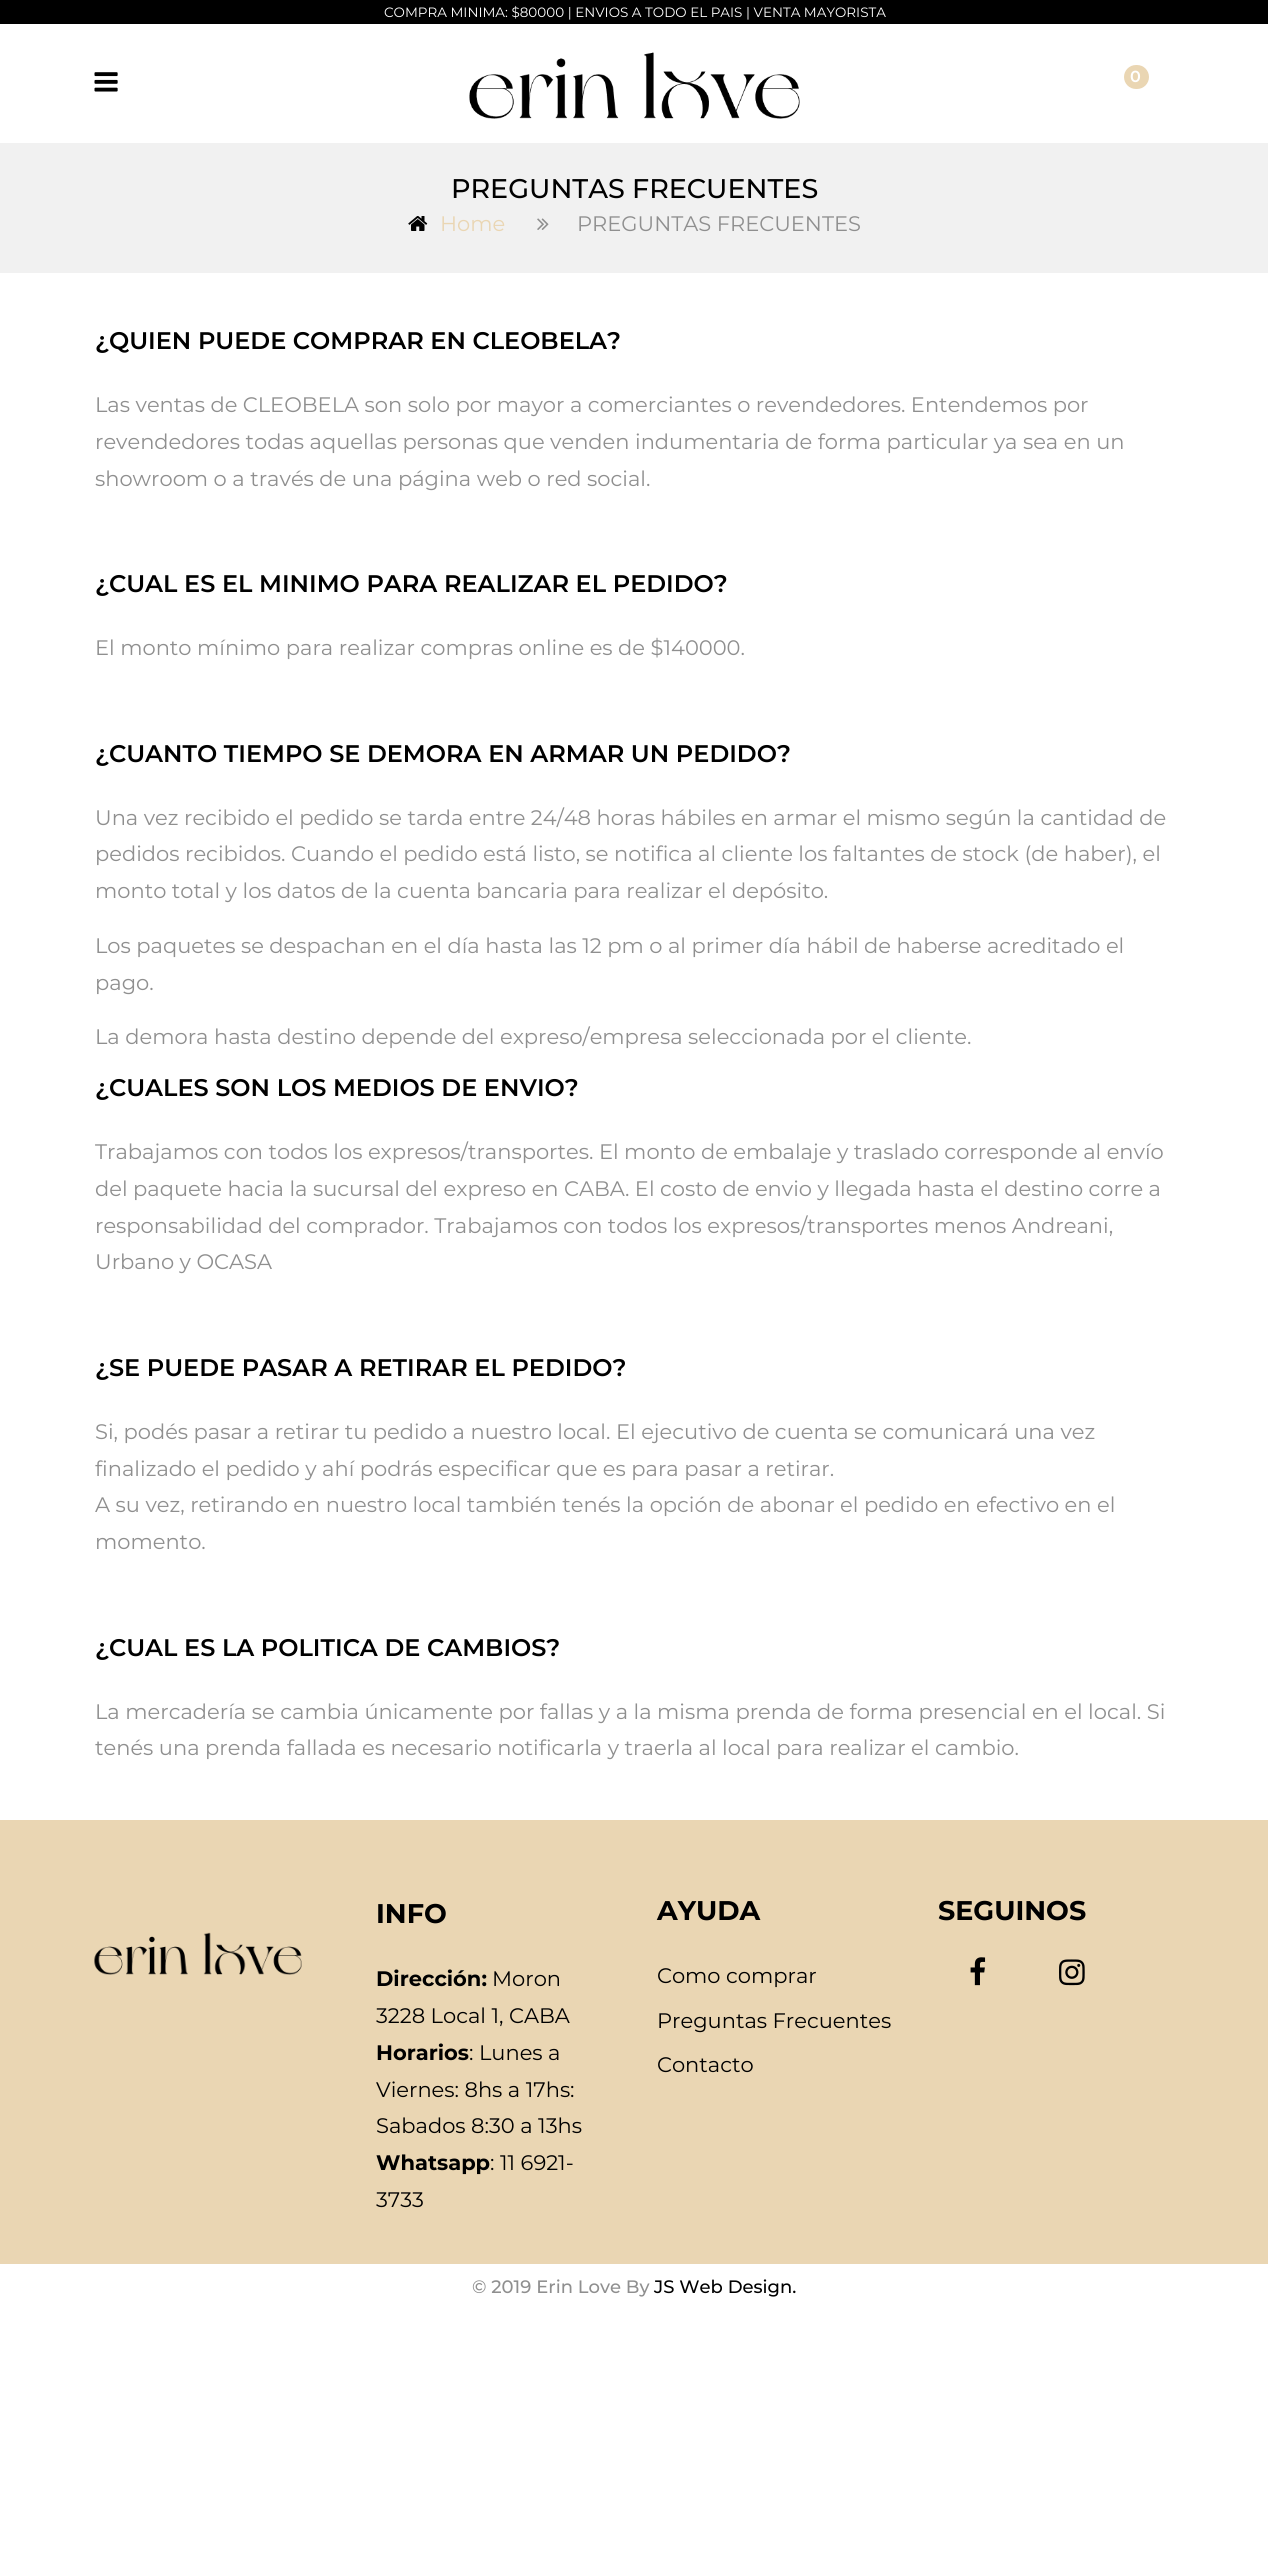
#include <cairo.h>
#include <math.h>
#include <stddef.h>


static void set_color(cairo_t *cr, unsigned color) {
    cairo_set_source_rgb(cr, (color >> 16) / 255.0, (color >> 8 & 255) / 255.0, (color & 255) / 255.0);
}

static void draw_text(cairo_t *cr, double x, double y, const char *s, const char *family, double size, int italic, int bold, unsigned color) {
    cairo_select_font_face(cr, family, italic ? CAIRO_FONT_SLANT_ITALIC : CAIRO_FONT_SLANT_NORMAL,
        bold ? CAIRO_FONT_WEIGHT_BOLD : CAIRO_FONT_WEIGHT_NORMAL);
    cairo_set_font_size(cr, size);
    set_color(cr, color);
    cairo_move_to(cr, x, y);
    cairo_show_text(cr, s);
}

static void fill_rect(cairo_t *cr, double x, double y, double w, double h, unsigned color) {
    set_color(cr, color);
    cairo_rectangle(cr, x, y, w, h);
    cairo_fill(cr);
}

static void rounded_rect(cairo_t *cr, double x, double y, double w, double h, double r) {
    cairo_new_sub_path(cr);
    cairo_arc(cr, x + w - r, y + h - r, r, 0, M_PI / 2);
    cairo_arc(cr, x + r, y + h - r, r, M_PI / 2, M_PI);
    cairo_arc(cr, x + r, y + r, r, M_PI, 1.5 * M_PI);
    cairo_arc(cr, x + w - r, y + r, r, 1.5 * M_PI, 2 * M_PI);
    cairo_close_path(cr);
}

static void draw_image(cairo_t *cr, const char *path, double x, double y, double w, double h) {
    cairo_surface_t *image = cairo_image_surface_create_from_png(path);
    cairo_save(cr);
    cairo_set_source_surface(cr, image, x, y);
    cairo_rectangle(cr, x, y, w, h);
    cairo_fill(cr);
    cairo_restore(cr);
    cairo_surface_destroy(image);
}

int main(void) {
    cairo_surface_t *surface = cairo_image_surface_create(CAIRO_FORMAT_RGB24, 1268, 2552);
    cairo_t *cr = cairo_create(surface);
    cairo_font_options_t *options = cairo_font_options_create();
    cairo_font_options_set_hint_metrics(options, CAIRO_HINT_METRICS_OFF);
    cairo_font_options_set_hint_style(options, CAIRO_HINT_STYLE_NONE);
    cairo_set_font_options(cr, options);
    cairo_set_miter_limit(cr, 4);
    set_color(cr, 0xFFFFFF);
    cairo_paint(cr);
    fill_rect(cr, 0, 0, 1268, 24, 0x000000);
    draw_text(cr, 384, 17, "COMPRA MINIMA: $80000 | ENVIOS A TODO EL PAIS | VENTA MAYORISTA", "Montserrat", 13.5, 0, 0, 0xFFFFFF);
    draw_image(cr, "assets/img1.png", 94, 72, 24, 20);
    draw_image(cr, "assets/img2.png", 469, 52, 331, 67);
    set_color(cr, 0xEAD6B3);
    rounded_rect(cr, 1124, 65, 25, 24, 12);
    cairo_fill(cr);
    draw_text(cr, 1130, 82, "0", "Montserrat SemiBold", 16, 0, 0, 0xFFFFFF);
    fill_rect(cr, 0, 143, 1268, 130, 0xF1F1F1);
    draw_text(cr, 451, 198, "PREGUNTAS FRECUENTES", "Montserrat Medium", 27, 0, 0, 0x000000);
    draw_image(cr, "assets/img3.png", 408, 216, 20, 15);
    draw_text(cr, 440, 231, "Home", "Montserrat", 21, 0, 0, 0xEAD6B3);
    draw_image(cr, "assets/img4.png", 537, 218, 12, 12);
    draw_text(cr, 577, 231, "PREGUNTAS FRECUENTES", "Montserrat", 21, 0, 0, 0x8F8F8F);
    draw_text(cr, 95, 349, "¿QUIEN PUEDE COMPRAR EN CLEOBELA?", "Montserrat SemiBold", 24, 0, 0, 0x000000);
    draw_text(cr, 95, 412, "Las ventas de CLEOBELA son solo por mayor a comerciantes o revendedores. Entendemos por", "Montserrat", 21, 0, 0, 0x8F8F8F);
    draw_text(cr, 95, 449, "revendedores todas aquellas personas que venden indumentaria de forma particular ya sea en un", "Montserrat", 21, 0, 0, 0x8F8F8F);
    draw_text(cr, 95, 486, "showroom o a través de una página web o red social.", "Montserrat", 21, 0, 0, 0x8F8F8F);
    draw_text(cr, 95, 592, "¿CUAL ES EL MINIMO PARA REALIZAR EL PEDIDO?", "Montserrat SemiBold", 24, 0, 0, 0x000000);
    draw_text(cr, 95, 655, "El monto mínimo para realizar compras online es de $140000.", "Montserrat", 21, 0, 0, 0x8F8F8F);
    draw_text(cr, 95, 762, "¿CUANTO TIEMPO SE DEMORA EN ARMAR UN PEDIDO?", "Montserrat SemiBold", 24, 0, 0, 0x000000);
    draw_text(cr, 95, 825, "Una vez recibido el pedido se tarda entre 24/48 horas hábiles en armar el mismo según la cantidad de", "Montserrat", 21, 0, 0, 0x8F8F8F);
    draw_text(cr, 95, 861, "pedidos recibidos. Cuando el pedido está listo, se notifica al cliente los faltantes de stock (de haber), el", "Montserrat", 21, 0, 0, 0x8F8F8F);
    draw_text(cr, 95, 898, "monto total y los datos de la cuenta bancaria para realizar el depósito.", "Montserrat", 21, 0, 0, 0x8F8F8F);
    draw_text(cr, 95, 953, "Los paquetes se despachan en el día hasta las 12 pm o al primer día hábil de haberse acreditado el", "Montserrat", 21, 0, 0, 0x8F8F8F);
    draw_text(cr, 95, 990, "pago.", "Montserrat", 21, 0, 0, 0x8F8F8F);
    draw_text(cr, 95, 1044, "La demora hasta destino depende del expreso/empresa seleccionada por el cliente.", "Montserrat", 21, 0, 0, 0x8F8F8F);
    draw_text(cr, 95, 1096, "¿CUALES SON LOS MEDIOS DE ENVIO?", "Montserrat SemiBold", 24, 0, 0, 0x000000);
    draw_text(cr, 95, 1159, "Trabajamos con todos los expresos/transportes. El monto de embalaje y traslado corresponde al envío", "Montserrat", 21, 0, 0, 0x8F8F8F);
    draw_text(cr, 95, 1196, "del paquete hacia la sucursal del expreso en CABA. El costo de envio y llegada hasta el destino corre a", "Montserrat", 21, 0, 0, 0x8F8F8F);
    draw_text(cr, 95, 1233, "responsabilidad del comprador. Trabajamos con todos los expresos/transportes menos Andreani,", "Montserrat", 21, 0, 0, 0x8F8F8F);
    draw_text(cr, 95, 1269, "Urbano y OCASA", "Montserrat", 21, 0, 0, 0x8F8F8F);
    draw_text(cr, 95, 1376, "¿SE PUEDE PASAR A RETIRAR EL PEDIDO?", "Montserrat SemiBold", 24, 0, 0, 0x000000);
    draw_text(cr, 95, 1439, "Si, podés pasar a retirar tu pedido a nuestro local. El ejecutivo de cuenta se comunicará una vez", "Montserrat", 21, 0, 0, 0x8F8F8F);
    draw_text(cr, 95, 1476, "finalizado el pedido y ahí podrás especificar que es para pasar a retirar.", "Montserrat", 21, 0, 0, 0x8F8F8F);
    draw_text(cr, 95, 1512, "A su vez, retirando en nuestro local también tenés la opción de abonar el pedido en efectivo en el", "Montserrat", 21, 0, 0, 0x8F8F8F);
    draw_text(cr, 95, 1549, "momento.", "Montserrat", 21, 0, 0, 0x8F8F8F);
    draw_text(cr, 95, 1656, "¿CUAL ES LA POLITICA DE CAMBIOS?", "Montserrat SemiBold", 24, 0, 0, 0x000000);
    draw_text(cr, 95, 1719, "La mercadería se cambia únicamente por fallas y a la misma prenda de forma presencial en el local. Si", "Montserrat", 21, 0, 0, 0x8F8F8F);
    draw_text(cr, 95, 1755, "tenés una prenda fallada es necesario notificarla y traerla al local para realizar el cambio.", "Montserrat", 21, 0, 0, 0x8F8F8F);
    fill_rect(cr, 0, 1820, 1268, 444, 0xEAD6B3);
    draw_image(cr, "assets/img5.png", 94, 1932, 208, 43);
    draw_text(cr, 376, 1923, "INFO", "Montserrat", 27, 0, 1, 0x000000);
    draw_text(cr, 376, 1986, "Dirección:", "Montserrat", 21, 0, 1, 0x000000);
    draw_text(cr, 492, 1986, "Moron", "Montserrat", 21, 0, 0, 0x000000);
    draw_text(cr, 376, 2023, "3228 Local 1, CABA", "Montserrat", 21, 0, 0, 0x000000);
    draw_text(cr, 376, 2060, "Horarios", "Montserrat", 21, 0, 1, 0x000000);
    draw_text(cr, 469, 2060, ": Lunes a", "Montserrat", 21, 0, 0, 0x000000);
    draw_text(cr, 376, 2097, "Viernes: 8hs a 17hs:", "Montserrat", 21, 0, 0, 0x000000);
    draw_text(cr, 376, 2133, "Sabados 8:30 a 13hs", "Montserrat", 21, 0, 0, 0x000000);
    draw_text(cr, 376, 2170, "Whatsapp", "Montserrat", 21, 0, 1, 0x000000);
    draw_text(cr, 490, 2170, ": 11 6921-", "Montserrat", 21, 0, 0, 0x000000);
    draw_text(cr, 376, 2207, "3733", "Montserrat", 21, 0, 0, 0x000000);
    draw_text(cr, 657, 1920, "AYUDA", "Montserrat", 27, 0, 1, 0x000000);
    draw_text(cr, 657, 1983, "Como comprar", "Montserrat", 21, 0, 0, 0x000000);
    draw_text(cr, 657, 2028, "Preguntas Frecuentes", "Montserrat", 21, 0, 0, 0x000000);
    draw_text(cr, 657, 2072, "Contacto", "Montserrat", 21, 0, 0, 0x000000);
    draw_text(cr, 938, 1920, "SEGUINOS", "Montserrat", 27, 0, 1, 0x000000);
    draw_image(cr, "assets/img6.png", 970, 1957, 16, 29);
    draw_image(cr, "assets/img7.png", 1059, 1959, 26, 27);
    draw_text(cr, 472, 2293, "© 2019 Erin Love By", "Montserrat Medium", 18, 0, 0, 0x8F8F8F);
    draw_text(cr, 654, 2293, "JS Web Design.", "Montserrat Medium", 18, 0, 0, 0x000000);
    cairo_surface_write_to_png(surface, "output.png");
    cairo_font_options_destroy(options);
    cairo_destroy(cr);
    cairo_surface_destroy(surface);
    return 0;
}
